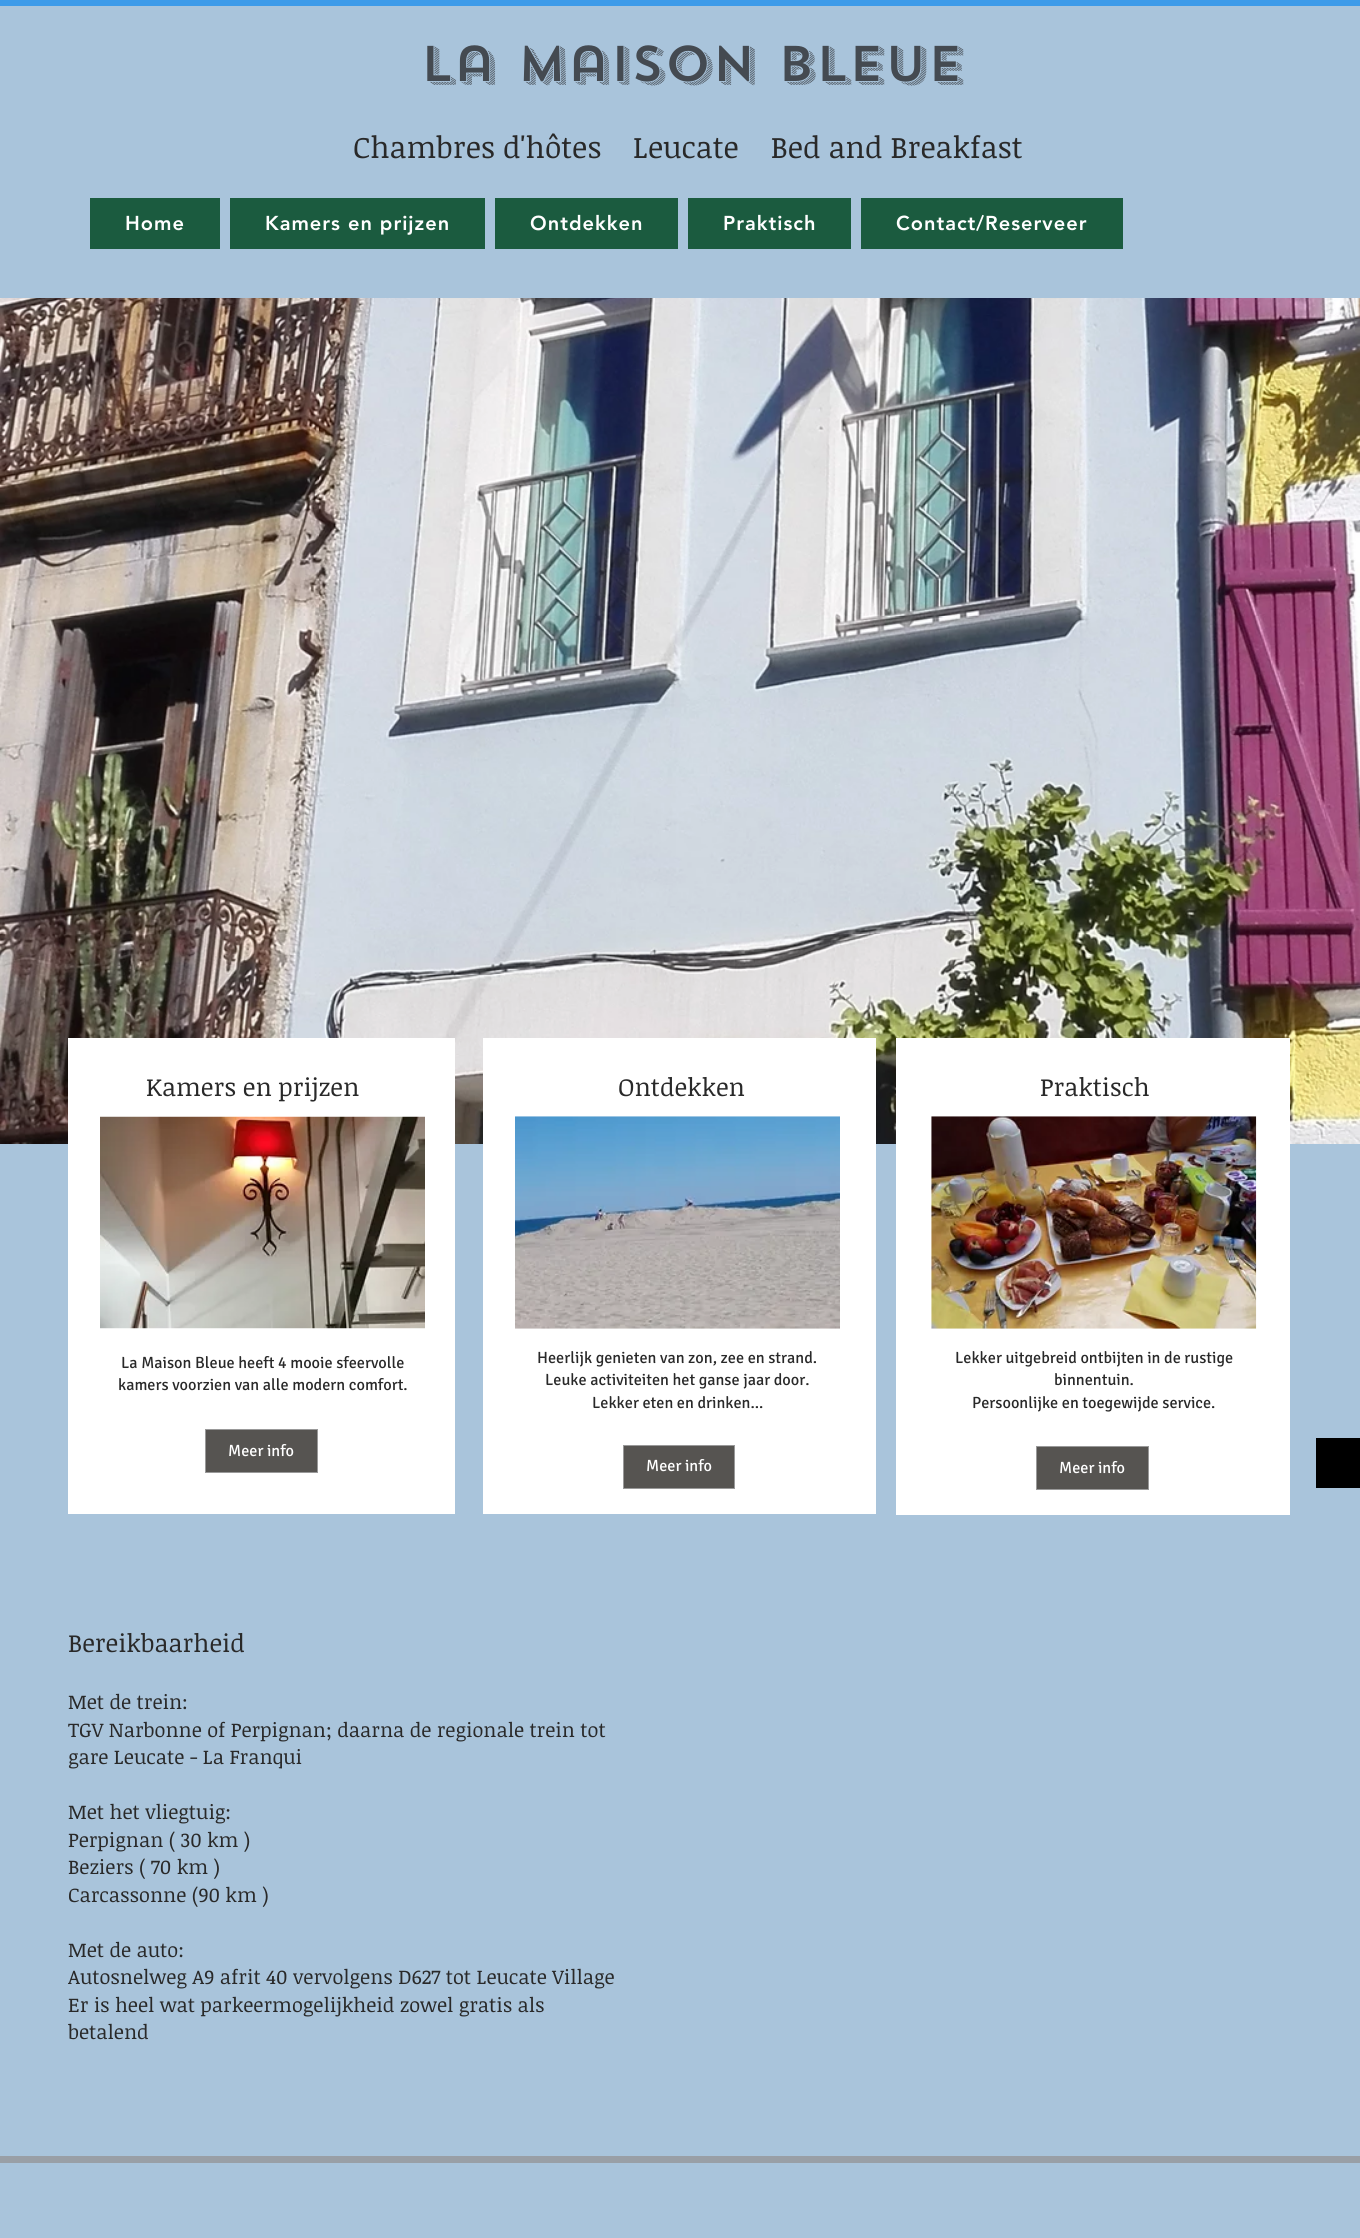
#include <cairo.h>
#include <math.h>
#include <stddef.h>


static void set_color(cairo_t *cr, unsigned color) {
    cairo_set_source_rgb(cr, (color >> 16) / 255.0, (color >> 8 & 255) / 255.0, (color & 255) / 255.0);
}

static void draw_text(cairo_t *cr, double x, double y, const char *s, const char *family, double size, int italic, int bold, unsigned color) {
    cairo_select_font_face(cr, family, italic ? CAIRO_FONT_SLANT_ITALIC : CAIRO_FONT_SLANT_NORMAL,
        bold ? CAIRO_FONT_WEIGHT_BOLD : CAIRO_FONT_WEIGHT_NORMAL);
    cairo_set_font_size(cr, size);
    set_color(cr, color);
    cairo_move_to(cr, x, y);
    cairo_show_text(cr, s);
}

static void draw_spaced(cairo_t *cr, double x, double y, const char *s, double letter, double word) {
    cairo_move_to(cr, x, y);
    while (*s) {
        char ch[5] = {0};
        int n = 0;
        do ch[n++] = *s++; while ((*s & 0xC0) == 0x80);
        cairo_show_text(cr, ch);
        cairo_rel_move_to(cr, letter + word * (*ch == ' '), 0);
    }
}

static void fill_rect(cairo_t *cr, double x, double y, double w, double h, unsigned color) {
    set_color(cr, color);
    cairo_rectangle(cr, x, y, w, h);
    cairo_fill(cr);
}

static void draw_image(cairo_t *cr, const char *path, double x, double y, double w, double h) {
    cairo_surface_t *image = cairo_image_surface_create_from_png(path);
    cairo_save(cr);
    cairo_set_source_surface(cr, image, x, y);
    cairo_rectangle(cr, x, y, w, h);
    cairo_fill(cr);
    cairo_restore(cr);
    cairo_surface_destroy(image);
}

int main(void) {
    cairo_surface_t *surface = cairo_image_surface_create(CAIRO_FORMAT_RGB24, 1360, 2238);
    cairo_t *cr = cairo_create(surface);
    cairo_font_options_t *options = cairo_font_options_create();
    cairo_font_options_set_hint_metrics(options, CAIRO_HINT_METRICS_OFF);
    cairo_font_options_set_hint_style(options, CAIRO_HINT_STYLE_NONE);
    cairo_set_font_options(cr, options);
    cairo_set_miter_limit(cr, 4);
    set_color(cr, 0xA9C4DB);
    cairo_paint(cr);
    fill_rect(cr, 0, 0, 1360, 6, 0x3D9BE9);
    draw_text(cr, 420, 81, "La Maison Bleue", "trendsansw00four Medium", 50, 0, 0, 0x444A51);
    draw_text(cr, 353, 158, "Chambres d'hôtes", "Noticia Text", 30, 0, 0, 0x292929);
    draw_text(cr, 633, 158, "Leucate    Bed and Breakfast", "Noticia Text", 30, 0, 0, 0x292929);
    fill_rect(cr, 90, 198, 130, 51, 0x1B5B3F);
    cairo_select_font_face(cr, "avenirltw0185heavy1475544 Black", CAIRO_FONT_SLANT_NORMAL, CAIRO_FONT_WEIGHT_NORMAL);
    cairo_set_font_size(cr, 20);
    set_color(cr, 0xFFFFFF);
    draw_spaced(cr, 125, 230, "Home", 1, 0);
    fill_rect(cr, 230, 198, 255, 51, 0x1B5B3F);
    set_color(cr, 0xFFFFFF);
    draw_spaced(cr, 265, 230, "Kamers en prijzen", 1, 0);
    fill_rect(cr, 495, 198, 183, 51, 0x1B5B3F);
    set_color(cr, 0xFFFFFF);
    draw_spaced(cr, 530, 230, "Ontdekken", 1, 0);
    fill_rect(cr, 688, 198, 163, 51, 0x1B5B3F);
    set_color(cr, 0xFFFFFF);
    draw_spaced(cr, 723, 230, "Praktisch", 1, 0);
    fill_rect(cr, 861, 198, 262, 51, 0x1B5B3F);
    set_color(cr, 0xFFFFFF);
    draw_spaced(cr, 896, 230, "Contact/Reserveer", 1, 0);
    draw_image(cr, "assets/img1.png", 0, 298, 1360, 846);
    fill_rect(cr, 68, 1038, 387, 476, 0xFFFFFF);
    draw_text(cr, 146, 1096, "Kamers en prijzen", "Noticia Text", 25, 0, 0, 0x292929);
    draw_image(cr, "assets/img2.png", 100, 1116, 325, 213);
    draw_text(cr, 121, 1368, "La Maison Bleue heeft 4 mooie sfeervolle", "Signika", 16.25, 0, 0, 0x292929);
    draw_text(cr, 118, 1390, "kamers voorzien van alle modern comfort.", "Signika", 16.25, 0, 0, 0x292929);
    set_color(cr, 0x565451);
    cairo_rectangle(cr, 205.5, 1429.5, 112, 43);
    cairo_fill_preserve(cr);
    set_color(cr, 0x999999);
    cairo_set_line_width(cr, 1);
    cairo_stroke(cr);
    draw_text(cr, 228, 1456, "Meer info", "Signika", 16.25, 0, 0, 0xFFFFFF);
    fill_rect(cr, 483, 1038, 393, 476, 0xFFFFFF);
    draw_text(cr, 618, 1096, "Ontdekken", "Noticia Text", 25, 0, 0, 0x292929);
    draw_image(cr, "assets/img3.png", 515, 1116, 325, 213);
    draw_text(cr, 537, 1363, "Heerlijk genieten van zon, zee en strand.", "Signika", 16.25, 0, 0, 0x292929);
    draw_text(cr, 545, 1385, "Leuke activiteiten het ganse jaar door.", "Signika", 16.25, 0, 0, 0x292929);
    draw_text(cr, 592, 1408, "Lekker eten en drinken...", "Signika", 16.25, 0, 0, 0x292929);
    set_color(cr, 0x565451);
    cairo_rectangle(cr, 623.5, 1445.5, 111, 43);
    cairo_fill_preserve(cr);
    set_color(cr, 0x999999);
    cairo_stroke(cr);
    draw_text(cr, 646, 1471, "Meer info", "Signika", 16.25, 0, 0, 0xFFFFFF);
    fill_rect(cr, 896, 1038, 394, 477, 0xFFFFFF);
    draw_text(cr, 1040, 1096, "Praktisch", "Noticia Text", 25, 0, 0, 0x292929);
    draw_image(cr, "assets/img4.png", 931, 1116, 326, 213);
    draw_text(cr, 955, 1363, "Lekker uitgebreid ontbijten in de rustige", "Signika", 16.25, 0, 0, 0x292929);
    draw_text(cr, 1054, 1385, "binnentuin.", "Signika", 16.25, 0, 0, 0x292929);
    draw_text(cr, 972, 1408, "Persoonlijke en toegewijde service.", "Signika", 16.25, 0, 0, 0x292929);
    set_color(cr, 0x565451);
    cairo_rectangle(cr, 1036.5, 1446.5, 112, 43);
    cairo_fill_preserve(cr);
    set_color(cr, 0x999999);
    cairo_stroke(cr);
    draw_text(cr, 1059, 1473, "Meer info", "Signika", 16.25, 0, 0, 0xFFFFFF);
    fill_rect(cr, 1316, 1438, 44, 50, 0x000000);
    draw_text(cr, 68, 1652, "Bereikbaarheid", "Noticia Text", 25, 0, 0, 0x292929);
    draw_text(cr, 68, 1709, "Met de trein:", "Noticia Text", 20, 0, 0, 0x292929);
    draw_text(cr, 68, 1737, "TGV Narbonne of Perpignan; daarna de regionale trein tot", "Noticia Text", 20, 0, 0, 0x292929);
    draw_text(cr, 68, 1764, "gare Leucate - La Franqui", "Noticia Text", 20, 0, 0, 0x292929);
    draw_text(cr, 68, 1819, "Met het vliegtuig:", "Noticia Text", 20, 0, 0, 0x292929);
    draw_text(cr, 68, 1847, "Perpignan ( 30 km )", "Noticia Text", 20, 0, 0, 0x292929);
    draw_text(cr, 68, 1874, "Beziers ( 70 km )", "Noticia Text", 20, 0, 0, 0x292929);
    draw_text(cr, 68, 1902, "Carcassonne (90 km )", "Noticia Text", 20, 0, 0, 0x292929);
    draw_text(cr, 68, 1957, "Met de auto:", "Noticia Text", 20, 0, 0, 0x292929);
    draw_text(cr, 68, 1984, "Autosnelweg A9 afrit 40 vervolgens D627 tot Leucate Village", "Noticia Text", 20, 0, 0, 0x292929);
    draw_text(cr, 68, 2012, "Er is heel wat parkeermogelijkheid zowel gratis als", "Noticia Text", 20, 0, 0, 0x292929);
    draw_text(cr, 68, 2039, "betalend", "Noticia Text", 20, 0, 0, 0x292929);
    fill_rect(cr, 0, 2156, 1360, 7, 0x999FA6);
    cairo_surface_write_to_png(surface, "output.png");
    cairo_font_options_destroy(options);
    cairo_destroy(cr);
    cairo_surface_destroy(surface);
    return 0;
}
